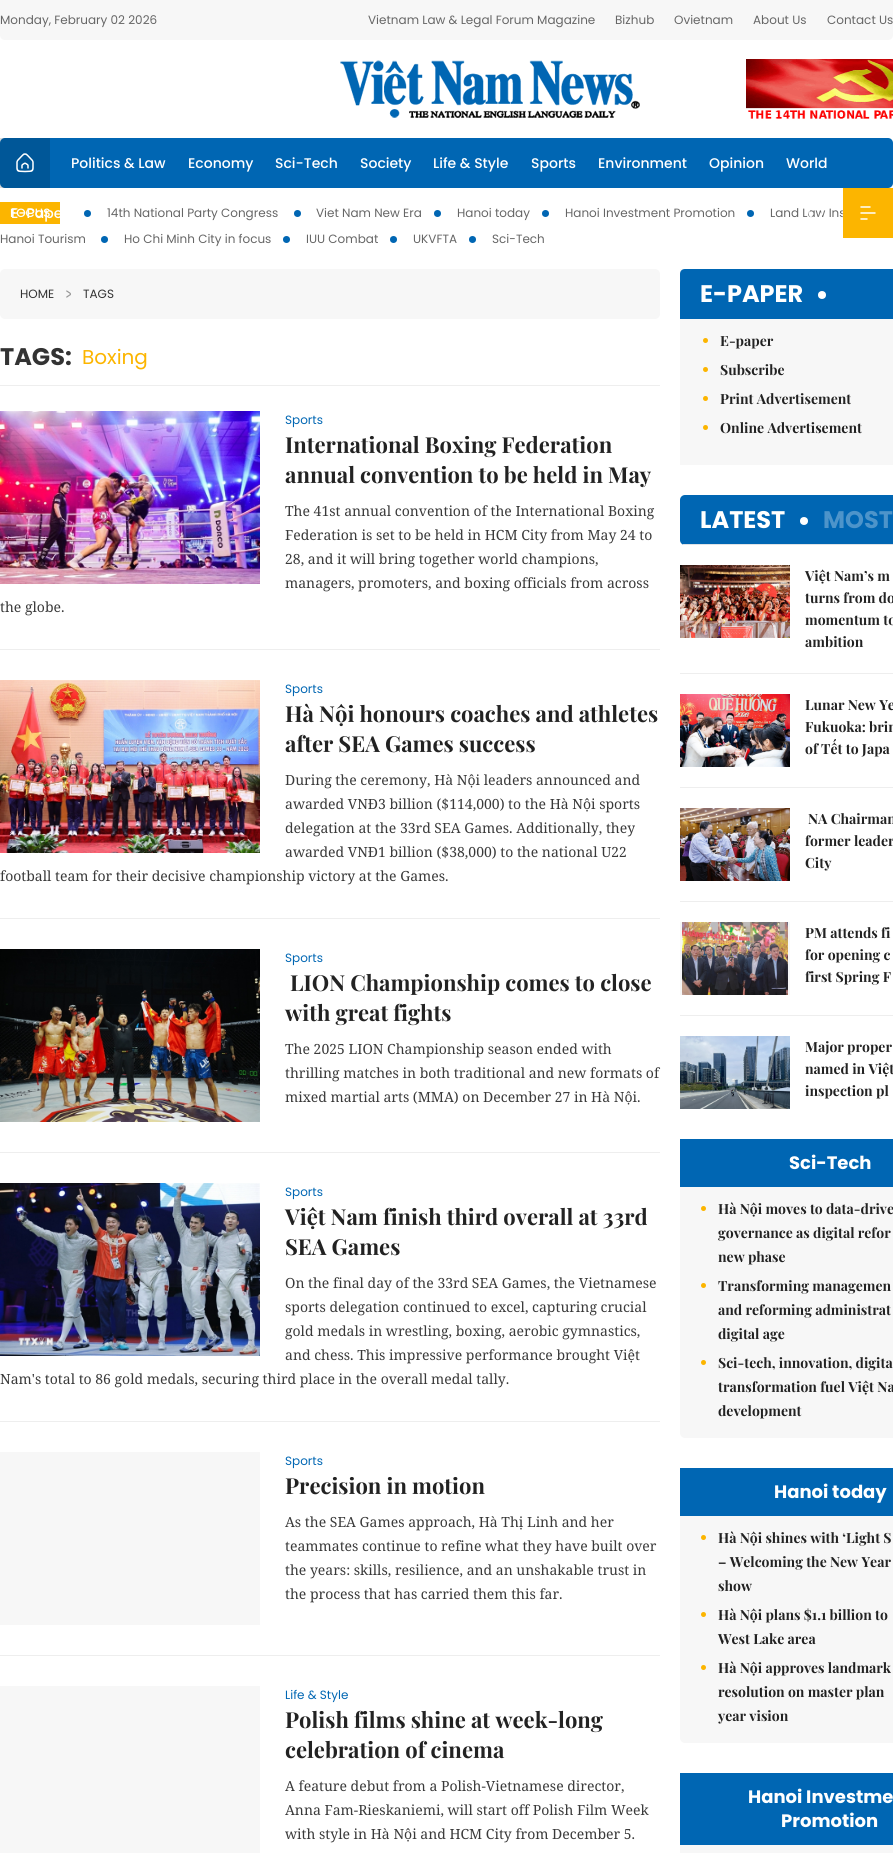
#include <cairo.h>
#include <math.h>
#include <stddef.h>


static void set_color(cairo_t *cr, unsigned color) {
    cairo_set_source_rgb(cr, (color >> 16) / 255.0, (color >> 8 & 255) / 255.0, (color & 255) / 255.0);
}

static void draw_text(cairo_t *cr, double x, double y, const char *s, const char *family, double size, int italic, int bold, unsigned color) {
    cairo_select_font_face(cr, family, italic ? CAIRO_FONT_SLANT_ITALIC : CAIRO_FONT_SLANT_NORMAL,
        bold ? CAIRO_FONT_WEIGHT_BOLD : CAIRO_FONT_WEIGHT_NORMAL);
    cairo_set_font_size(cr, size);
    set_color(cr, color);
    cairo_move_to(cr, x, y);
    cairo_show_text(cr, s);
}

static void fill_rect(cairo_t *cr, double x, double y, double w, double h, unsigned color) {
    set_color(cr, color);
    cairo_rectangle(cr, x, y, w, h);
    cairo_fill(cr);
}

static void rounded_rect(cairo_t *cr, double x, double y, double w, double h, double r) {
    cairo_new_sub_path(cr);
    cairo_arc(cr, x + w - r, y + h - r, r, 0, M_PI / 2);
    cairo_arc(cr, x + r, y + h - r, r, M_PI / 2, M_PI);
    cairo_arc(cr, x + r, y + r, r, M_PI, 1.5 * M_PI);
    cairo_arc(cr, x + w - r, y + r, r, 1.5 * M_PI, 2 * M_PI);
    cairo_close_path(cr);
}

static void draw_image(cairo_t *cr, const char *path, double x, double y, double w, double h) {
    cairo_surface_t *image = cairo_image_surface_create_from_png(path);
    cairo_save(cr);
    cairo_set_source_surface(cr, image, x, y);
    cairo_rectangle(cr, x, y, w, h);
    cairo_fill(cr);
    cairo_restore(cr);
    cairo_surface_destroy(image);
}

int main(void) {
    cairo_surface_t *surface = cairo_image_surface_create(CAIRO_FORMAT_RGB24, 893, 1853);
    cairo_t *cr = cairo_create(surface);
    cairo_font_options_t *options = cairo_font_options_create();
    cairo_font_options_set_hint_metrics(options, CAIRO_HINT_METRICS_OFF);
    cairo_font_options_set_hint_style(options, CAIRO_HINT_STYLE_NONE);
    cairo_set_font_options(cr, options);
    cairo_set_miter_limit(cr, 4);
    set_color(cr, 0xFFFFFF);
    cairo_paint(cr);
    set_color(cr, 0xF7F7F7);
    cairo_new_path(cr);
    cairo_move_to(cr, 0, 0);
    cairo_line_to(cr, 893, 0);
    cairo_line_to(cr, 893, 35);
    cairo_curve_to(cr, 893, 38, 891, 40, 888, 40);
    cairo_line_to(cr, 5, 40);
    cairo_curve_to(cr, 2, 40, 0, 38, 0, 35);
    cairo_close_path(cr);
    cairo_fill(cr);
    draw_text(cr, 0, 24, "Monday, February 02 2026", "Poppins", 12, 0, 0, 0x666666);
    draw_text(cr, 368, 24, "Vietnam Law & Legal Forum Magazine", "Poppins", 12, 0, 0, 0x666666);
    draw_text(cr, 615, 24, "Bizhub", "Poppins", 12, 0, 0, 0x666666);
    draw_text(cr, 674, 24, "Ovietnam", "Poppins", 12, 0, 0, 0x666666);
    draw_text(cr, 753, 24, "About Us", "Poppins", 12, 0, 0, 0x666666);
    draw_text(cr, 827, 24, "Contact Us", "Poppins", 12, 0, 0, 0x666666);
    draw_image(cr, "assets/img1.png", 340, 60, 300, 58);
    draw_image(cr, "assets/img2.png", 746, 59, 147, 60);
    set_color(cr, 0x0066B3);
    rounded_rect(cr, 0, 138, 893, 50, 5);
    cairo_fill(cr);
    cairo_set_source_rgba(cr, 0, 0, 0, 0.15);
    cairo_rectangle(cr, 0, 138, 50, 50);
    cairo_fill(cr);
    draw_image(cr, "assets/img3.png", 16, 153, 18, 20);
    draw_text(cr, 71, 168, "Politics & Law", "Poppins Medium", 14, 0, 0, 0xFFFFFF);
    draw_text(cr, 188, 168, "Economy", "Poppins Medium", 14, 0, 0, 0xFFFFFF);
    draw_text(cr, 275, 168, "Sci-Tech", "Poppins Medium", 14, 0, 0, 0xFFFFFF);
    draw_text(cr, 360, 168, "Society", "Poppins Medium", 14, 0, 0, 0xFFFFFF);
    draw_text(cr, 433, 168, "Life & Style", "Poppins Medium", 14, 0, 0, 0xFFFFFF);
    draw_text(cr, 531, 168, "Sports", "Poppins Medium", 14, 0, 0, 0xFFFFFF);
    draw_text(cr, 598, 168, "Environment", "Poppins Medium", 14, 0, 0, 0xFFFFFF);
    draw_text(cr, 709, 168, "Opinion", "Poppins Medium", 14, 0, 0, 0xFFFFFF);
    draw_text(cr, 786, 168, "World", "Poppins Medium", 14, 0, 0, 0xFFFFFF);
    fill_rect(cr, 0, 202, 60, 22, 0xFCB500);
    draw_text(cr, 10, 217, "FOCUS", "Poppins Medium", 12, 0, 0, 0xFFFFFF);
    draw_text(cr, 11, 218, "E-Pape", "Poppins Medium", 14, 0, 0, 0xFFFFFF);
    draw_text(cr, 770, 217, "Land Law Ins", "Poppins", 12, 0, 0, 0x666666);
    cairo_set_source_rgba(cr, 1, 1, 1, 0.2);
    cairo_rectangle(cr, 842, 210, 1, 7);
    cairo_fill(cr);
    draw_image(cr, "assets/img4.png", 808, 210, 15, 7);
    fill_rect(cr, 843, 188, 50, 50, 0xFCB500);
    draw_image(cr, "assets/img5.png", 860, 206, 16, 14);
    set_color(cr, 0x0066B3);
    cairo_arc(cr, 87.5, 213.5, 3.5, 0, 2 * M_PI);
    cairo_fill(cr);
    draw_text(cr, 107, 217, "14th National Party Congress", "Poppins", 12, 0, 0, 0x666666);
    set_color(cr, 0x0066B3);
    cairo_new_path(cr);
    cairo_arc(cr, 297.5, 213.5, 3.5, 0, 2 * M_PI);
    cairo_fill(cr);
    draw_text(cr, 316, 217, "Viet Nam New Era", "Poppins", 12, 0, 0, 0x666666);
    set_color(cr, 0x0066B3);
    cairo_new_path(cr);
    cairo_arc(cr, 437.5, 213.5, 3.5, 0, 2 * M_PI);
    cairo_fill(cr);
    draw_text(cr, 457, 217, "Hanoi today", "Poppins", 12, 0, 0, 0x666666);
    set_color(cr, 0x0066B3);
    cairo_new_path(cr);
    cairo_arc(cr, 545.5, 213.5, 3.5, 0, 2 * M_PI);
    cairo_fill(cr);
    draw_text(cr, 565, 217, "Hanoi Investment Promotion", "Poppins", 12, 0, 0, 0x666666);
    set_color(cr, 0x0066B3);
    cairo_new_path(cr);
    cairo_arc(cr, 750.5, 213.5, 3.5, 0, 2 * M_PI);
    cairo_fill(cr);
    draw_text(cr, 0, 243, "Hanoi Tourism", "Poppins", 12, 0, 0, 0x666666);
    set_color(cr, 0x0066B3);
    cairo_new_path(cr);
    cairo_arc(cr, 104.5, 239.5, 3.5, 0, 2 * M_PI);
    cairo_fill(cr);
    draw_text(cr, 124, 243, "Ho Chi Minh City in focus", "Poppins", 12, 0, 0, 0x666666);
    set_color(cr, 0x0066B3);
    cairo_new_path(cr);
    cairo_arc(cr, 286.5, 239.5, 3.5, 0, 2 * M_PI);
    cairo_fill(cr);
    draw_text(cr, 306, 243, "IUU Combat", "Poppins", 12, 0, 0, 0x666666);
    set_color(cr, 0x0066B3);
    cairo_new_path(cr);
    cairo_arc(cr, 393.5, 239.5, 3.5, 0, 2 * M_PI);
    cairo_fill(cr);
    draw_text(cr, 413, 243, "UKVFTA", "Poppins", 12, 0, 0, 0x666666);
    set_color(cr, 0x0066B3);
    cairo_new_path(cr);
    cairo_arc(cr, 472.5, 239.5, 3.5, 0, 2 * M_PI);
    cairo_fill(cr);
    draw_text(cr, 492, 243, "Sci-Tech", "Poppins", 12, 0, 0, 0x666666);
    set_color(cr, 0xF7F7F7);
    rounded_rect(cr, 0, 269, 660, 50, 5);
    cairo_fill(cr);
    draw_text(cr, 20, 298, "HOME", "Poppins", 12, 0, 0, 0x333333);
    draw_image(cr, "assets/img6.png", 66, 290, 5, 8);
    draw_text(cr, 83, 298, "TAGS", "Poppins", 12, 0, 0, 0x333333);
    fill_rect(cr, 0, 385, 660, 1, 0xEEEEEE);
    draw_text(cr, 0, 365, "TAGS:", "Poppins", 24, 0, 1, 0x333333);
    draw_text(cr, 82, 364, "Boxing", "Poppins", 20, 0, 0, 0xFCB500);
    fill_rect(cr, 0, 649, 660, 1, 0xEEEEEE);
    draw_image(cr, "assets/img7.png", 0, 411, 260, 173);
    draw_text(cr, 285, 424, "Sports", "Poppins", 12, 0, 0, 0x0066B3);
    draw_text(cr, 285, 453, "International Boxing Federation", "Playfair Display", 22, 0, 1, 0x222222);
    draw_text(cr, 285, 483, "annual convention to be held in May", "Playfair Display", 22, 0, 1, 0x222222);
    draw_text(cr, 285, 516, "The 41st annual convention of the International Boxing", "Noto Serif", 14, 0, 0, 0x3A3A3A);
    draw_text(cr, 285, 540, "Federation is set to be held in HCM City from May 24 to", "Noto Serif", 14, 0, 0, 0x3A3A3A);
    draw_text(cr, 285, 564, "28, and it will bring together world champions,", "Noto Serif", 14, 0, 0, 0x3A3A3A);
    draw_text(cr, 285, 588, "managers, promoters, and boxing officials from across", "Noto Serif", 14, 0, 0, 0x3A3A3A);
    draw_text(cr, 0, 612, "the globe.", "Noto Serif", 14, 0, 0, 0x3A3A3A);
    fill_rect(cr, 0, 918, 660, 1, 0xEEEEEE);
    draw_image(cr, "assets/img8.png", 0, 680, 260, 173);
    draw_text(cr, 285, 693, "Sports", "Poppins", 12, 0, 0, 0x0066B3);
    draw_text(cr, 285, 722, "Hà Nội honours coaches and athletes", "Playfair Display", 22, 0, 1, 0x222222);
    draw_text(cr, 285, 752, "after SEA Games success", "Playfair Display", 22, 0, 1, 0x222222);
    draw_text(cr, 285, 785, "During the ceremony, Hà Nội leaders announced and", "Noto Serif", 14, 0, 0, 0x3A3A3A);
    draw_text(cr, 285, 809, "awarded VNĐ3 billion ($114,000) to the Hà Nội sports", "Noto Serif", 14, 0, 0, 0x3A3A3A);
    draw_text(cr, 285, 833, "delegation at the 33rd SEA Games. Additionally, they", "Noto Serif", 14, 0, 0, 0x3A3A3A);
    draw_text(cr, 285, 857, "awarded VNĐ1 billion ($38,000) to the national U22", "Noto Serif", 14, 0, 0, 0x3A3A3A);
    draw_text(cr, 0, 881, "football team for their decisive championship victory at the Games.", "Noto Serif", 14, 0, 0, 0x3A3A3A);
    fill_rect(cr, 0, 1152, 660, 1, 0xEEEEEE);
    draw_image(cr, "assets/img9.png", 0, 949, 260, 173);
    draw_text(cr, 285, 962, "Sports", "Poppins", 12, 0, 0, 0x0066B3);
    draw_text(cr, 290, 991, "LION Championship comes to close", "Playfair Display", 22, 0, 1, 0x222222);
    draw_text(cr, 285, 1021, "with great fights", "Playfair Display", 22, 0, 1, 0x222222);
    draw_text(cr, 285, 1054, "The 2025 LION Championship season ended with", "Noto Serif", 14, 0, 0, 0x3A3A3A);
    draw_text(cr, 285, 1078, "thrilling matches in both traditional and new formats of", "Noto Serif", 14, 0, 0, 0x3A3A3A);
    draw_text(cr, 285, 1102, "mixed martial arts (MMA) on December 27 in Hà Nội.", "Noto Serif", 14, 0, 0, 0x3A3A3A);
    fill_rect(cr, 0, 1421, 660, 1, 0xEEEEEE);
    draw_image(cr, "assets/img10.png", 0, 1183, 260, 173);
    draw_text(cr, 285, 1196, "Sports", "Poppins", 12, 0, 0, 0x0066B3);
    draw_text(cr, 285, 1225, "Việt Nam finish third overall at 33rd", "Playfair Display", 22, 0, 1, 0x222222);
    draw_text(cr, 285, 1255, "SEA Games", "Playfair Display", 22, 0, 1, 0x222222);
    draw_text(cr, 285, 1288, "On the final day of the 33rd SEA Games, the Vietnamese", "Noto Serif", 14, 0, 0, 0x3A3A3A);
    draw_text(cr, 285, 1312, "sports delegation continued to excel, capturing crucial", "Noto Serif", 14, 0, 0, 0x3A3A3A);
    draw_text(cr, 285, 1336, "gold medals in wrestling, boxing, aerobic gymnastics,", "Noto Serif", 14, 0, 0, 0x3A3A3A);
    draw_text(cr, 285, 1360, "and chess. This impressive performance brought Việt", "Noto Serif", 14, 0, 0, 0x3A3A3A);
    draw_text(cr, 0, 1384, "Nam's total to 86 gold medals, securing third place in the overall medal tally.", "Noto Serif", 14, 0, 0, 0x3A3A3A);
    fill_rect(cr, 0, 1655, 660, 1, 0xEEEEEE);
    fill_rect(cr, 0, 1452, 260, 173, 0xF7F7F7);
    draw_text(cr, 285, 1465, "Sports", "Poppins", 12, 0, 0, 0x0066B3);
    draw_text(cr, 285, 1494, "Precision in motion", "Playfair Display", 22, 0, 1, 0x222222);
    draw_text(cr, 285, 1527, "As the SEA Games approach, Hà Thị Linh and her", "Noto Serif", 14, 0, 0, 0x3A3A3A);
    draw_text(cr, 285, 1551, "teammates continue to refine what they have built over", "Noto Serif", 14, 0, 0, 0x3A3A3A);
    draw_text(cr, 285, 1575, "the years: skills, resilience, and an unshakable trust in", "Noto Serif", 14, 0, 0, 0x3A3A3A);
    draw_text(cr, 285, 1599, "the process that has carried them this far.", "Noto Serif", 14, 0, 0, 0x3A3A3A);
    fill_rect(cr, 0, 1686, 260, 167, 0xF7F7F7);
    draw_text(cr, 285, 1699, "Life & Style", "Poppins", 12, 0, 0, 0x0066B3);
    draw_text(cr, 285, 1728, "Polish films shine at week-long", "Playfair Display", 22, 0, 1, 0x222222);
    draw_text(cr, 285, 1758, "celebration of cinema", "Playfair Display", 22, 0, 1, 0x222222);
    draw_text(cr, 285, 1791, "A feature debut from a Polish-Vietnamese director,", "Noto Serif", 14, 0, 0, 0x3A3A3A);
    draw_text(cr, 285, 1815, "Anna Fam-Rieskaniemi, will start off Polish Film Week", "Noto Serif", 14, 0, 0, 0x3A3A3A);
    draw_text(cr, 285, 1839, "with style in Hà Nội and HCM City from December 5.", "Noto Serif", 14, 0, 0, 0x3A3A3A);
    fill_rect(cr, 680, 269, 213, 196, 0xF7F7F7);
    set_color(cr, 0x0066B3);
    cairo_new_path(cr);
    cairo_move_to(cr, 685, 269);
    cairo_line_to(cr, 893, 269);
    cairo_curve_to(cr, 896, 269, 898, 271, 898, 274);
    cairo_line_to(cr, 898, 319);
    cairo_line_to(cr, 680, 319);
    cairo_line_to(cr, 680, 274);
    cairo_curve_to(cr, 680, 271, 682, 269, 685, 269);
    cairo_close_path(cr);
    cairo_fill(cr);
    draw_text(cr, 700, 302, "E-PAPER", "Poppins", 24, 0, 1, 0xFFFFFF);
    cairo_new_path(cr);
    cairo_arc(cr, 822, 295, 4, 0, 2 * M_PI);
    cairo_fill(cr);
    set_color(cr, 0xFCB500);
    cairo_arc(cr, 705.5, 340.5, 2.5, 0, 2 * M_PI);
    cairo_fill(cr);
    draw_text(cr, 720, 346, "E-paper", "Playfair Display", 14, 0, 1, 0x222222);
    set_color(cr, 0xFCB500);
    cairo_new_path(cr);
    cairo_arc(cr, 705.5, 369.5, 2.5, 0, 2 * M_PI);
    cairo_fill(cr);
    draw_text(cr, 720, 375, "Subscribe", "Playfair Display", 14, 0, 1, 0x222222);
    set_color(cr, 0xFCB500);
    cairo_new_path(cr);
    cairo_arc(cr, 705.5, 398.5, 2.5, 0, 2 * M_PI);
    cairo_fill(cr);
    draw_text(cr, 720, 404, "Print Advertisement", "Playfair Display", 14, 0, 1, 0x222222);
    set_color(cr, 0xFCB500);
    cairo_new_path(cr);
    cairo_arc(cr, 705.5, 427.5, 2.5, 0, 2 * M_PI);
    cairo_fill(cr);
    draw_text(cr, 720, 433, "Online Advertisement", "Playfair Display", 14, 0, 1, 0x222222);
    set_color(cr, 0x0066B3);
    rounded_rect(cr, 680, 495, 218, 50, 5);
    cairo_fill(cr);
    fill_rect(cr, 683, 544, 210, 1, 0xDEE2E6);
    draw_text(cr, 700, 528, "LATEST", "Poppins", 24, 0, 1, 0xFFFFFF);
    cairo_new_path(cr);
    cairo_arc(cr, 804, 521, 4, 0, 2 * M_PI);
    cairo_fill(cr);
    draw_text(cr, 823, 528, "MOST", "Poppins", 24, 0, 1, 0x4D94CA);
    fill_rect(cr, 680, 673, 213, 1, 0xEEEEEE);
    draw_image(cr, "assets/img11.png", 680, 565, 110, 73);
    draw_text(cr, 805, 581, "Việt Nam’s m", "Playfair Display", 14, 0, 1, 0x222222);
    draw_text(cr, 805, 603, "turns from do", "Playfair Display", 14, 0, 1, 0x222222);
    draw_text(cr, 805, 625, "momentum to", "Playfair Display", 14, 0, 1, 0x222222);
    draw_text(cr, 805, 647, "ambition", "Playfair Display", 14, 0, 1, 0x222222);
    fill_rect(cr, 680, 787, 213, 1, 0xEEEEEE);
    draw_image(cr, "assets/img12.png", 680, 694, 110, 73);
    draw_text(cr, 805, 710, "Lunar New Ye", "Playfair Display", 14, 0, 1, 0x222222);
    draw_text(cr, 805, 732, "Fukuoka: brin", "Playfair Display", 14, 0, 1, 0x222222);
    draw_text(cr, 805, 754, "of Tết to Japa", "Playfair Display", 14, 0, 1, 0x222222);
    fill_rect(cr, 680, 901, 213, 1, 0xEEEEEE);
    draw_image(cr, "assets/img13.png", 680, 808, 110, 73);
    draw_text(cr, 808, 824, "NA Chairman", "Playfair Display", 14, 0, 1, 0x222222);
    draw_text(cr, 805, 846, "former leader", "Playfair Display", 14, 0, 1, 0x222222);
    draw_text(cr, 805, 868, "City", "Playfair Display", 14, 0, 1, 0x222222);
    fill_rect(cr, 680, 1015, 213, 1, 0xEEEEEE);
    fill_rect(cr, 680, 922, 110, 73, 0xF7F7F7);
    draw_image(cr, "assets/img14.png", 682, 922, 106, 73);
    draw_text(cr, 805, 938, "PM attends fi", "Playfair Display", 14, 0, 1, 0x222222);
    draw_text(cr, 805, 960, "for opening c", "Playfair Display", 14, 0, 1, 0x222222);
    draw_text(cr, 805, 982, "first Spring F", "Playfair Display", 14, 0, 1, 0x222222);
    draw_image(cr, "assets/img15.png", 680, 1036, 110, 73);
    draw_text(cr, 805, 1052, "Major proper", "Playfair Display", 14, 0, 1, 0x222222);
    draw_text(cr, 805, 1074, "named in Việt", "Playfair Display", 14, 0, 1, 0x222222);
    draw_text(cr, 805, 1096, "inspection pl", "Playfair Display", 14, 0, 1, 0x222222);
    set_color(cr, 0xF7F7F7);
    rounded_rect(cr, 680, 1139, 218, 299, 5);
    cairo_fill(cr);
    fill_rect(cr, 680, 1139, 213, 48, 0x0066B3);
    draw_text(cr, 789, 1169, "Sci-Tech", "Poppins", 18, 0, 1, 0xFFFFFF);
    set_color(cr, 0xFCB500);
    cairo_new_path(cr);
    cairo_arc(cr, 703.5, 1208.5, 2.5, 0, 2 * M_PI);
    cairo_fill(cr);
    draw_text(cr, 718, 1214, "Hà Nội moves to data-drive", "Playfair Display", 14, 0, 1, 0x222222);
    draw_text(cr, 718, 1238, "governance as digital refor", "Playfair Display", 14, 0, 1, 0x222222);
    draw_text(cr, 718, 1262, "new phase", "Playfair Display", 14, 0, 1, 0x222222);
    set_color(cr, 0xFCB500);
    cairo_new_path(cr);
    cairo_arc(cr, 703.5, 1285.5, 2.5, 0, 2 * M_PI);
    cairo_fill(cr);
    draw_text(cr, 718, 1291, "Transforming managemen", "Playfair Display", 14, 0, 1, 0x222222);
    draw_text(cr, 718, 1315, "and reforming administrat", "Playfair Display", 14, 0, 1, 0x222222);
    draw_text(cr, 718, 1339, "digital age", "Playfair Display", 14, 0, 1, 0x222222);
    set_color(cr, 0xFCB500);
    cairo_new_path(cr);
    cairo_arc(cr, 703.5, 1362.5, 2.5, 0, 2 * M_PI);
    cairo_fill(cr);
    draw_text(cr, 718, 1368, "Sci-tech, innovation, digita", "Playfair Display", 14, 0, 1, 0x222222);
    draw_text(cr, 718, 1392, "transformation fuel Việt Na", "Playfair Display", 14, 0, 1, 0x222222);
    draw_text(cr, 718, 1416, "development", "Playfair Display", 14, 0, 1, 0x222222);
    set_color(cr, 0xF7F7F7);
    rounded_rect(cr, 680, 1468, 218, 275, 5);
    cairo_fill(cr);
    fill_rect(cr, 680, 1468, 213, 48, 0x0066B3);
    draw_text(cr, 774, 1498, "Hanoi today", "Poppins", 18, 0, 1, 0xFFFFFF);
    set_color(cr, 0xFCB500);
    cairo_new_path(cr);
    cairo_arc(cr, 703.5, 1537.5, 2.5, 0, 2 * M_PI);
    cairo_fill(cr);
    draw_text(cr, 718, 1543, "Hà Nội shines with ‘Light S", "Playfair Display", 14, 0, 1, 0x222222);
    draw_text(cr, 718, 1567, "– Welcoming the New Year", "Playfair Display", 14, 0, 1, 0x222222);
    draw_text(cr, 718, 1591, "show", "Playfair Display", 14, 0, 1, 0x222222);
    set_color(cr, 0xFCB500);
    cairo_new_path(cr);
    cairo_arc(cr, 703.5, 1614.5, 2.5, 0, 2 * M_PI);
    cairo_fill(cr);
    draw_text(cr, 718, 1620, "Hà Nội plans $1.1 billion to", "Playfair Display", 14, 0, 1, 0x222222);
    draw_text(cr, 718, 1644, "West Lake area", "Playfair Display", 14, 0, 1, 0x222222);
    set_color(cr, 0xFCB500);
    cairo_new_path(cr);
    cairo_arc(cr, 703.5, 1667.5, 2.5, 0, 2 * M_PI);
    cairo_fill(cr);
    draw_text(cr, 718, 1673, "Hà Nội approves landmark", "Playfair Display", 14, 0, 1, 0x222222);
    draw_text(cr, 718, 1697, "resolution on master plan", "Playfair Display", 14, 0, 1, 0x222222);
    draw_text(cr, 718, 1721, "year vision", "Playfair Display", 14, 0, 1, 0x222222);
    fill_rect(cr, 680, 1845, 213, 8, 0xF7F7F7);
    fill_rect(cr, 680, 1773, 213, 72, 0x0066B3);
    draw_text(cr, 748, 1803, "Hanoi Investme", "Poppins", 18, 0, 1, 0xFFFFFF);
    draw_text(cr, 781, 1827, "Promotion", "Poppins", 18, 0, 1, 0xFFFFFF);
    cairo_surface_write_to_png(surface, "output.png");
    cairo_font_options_destroy(options);
    cairo_destroy(cr);
    cairo_surface_destroy(surface);
    return 0;
}
